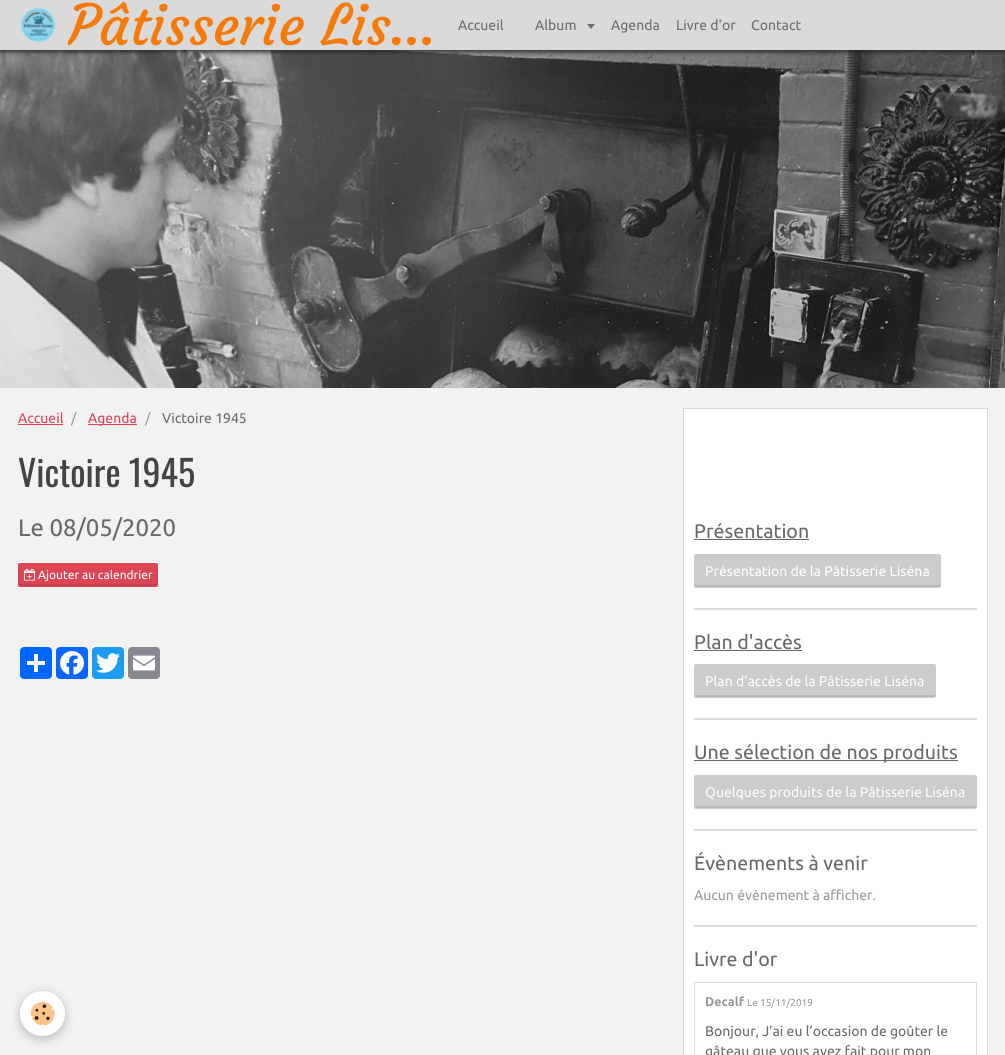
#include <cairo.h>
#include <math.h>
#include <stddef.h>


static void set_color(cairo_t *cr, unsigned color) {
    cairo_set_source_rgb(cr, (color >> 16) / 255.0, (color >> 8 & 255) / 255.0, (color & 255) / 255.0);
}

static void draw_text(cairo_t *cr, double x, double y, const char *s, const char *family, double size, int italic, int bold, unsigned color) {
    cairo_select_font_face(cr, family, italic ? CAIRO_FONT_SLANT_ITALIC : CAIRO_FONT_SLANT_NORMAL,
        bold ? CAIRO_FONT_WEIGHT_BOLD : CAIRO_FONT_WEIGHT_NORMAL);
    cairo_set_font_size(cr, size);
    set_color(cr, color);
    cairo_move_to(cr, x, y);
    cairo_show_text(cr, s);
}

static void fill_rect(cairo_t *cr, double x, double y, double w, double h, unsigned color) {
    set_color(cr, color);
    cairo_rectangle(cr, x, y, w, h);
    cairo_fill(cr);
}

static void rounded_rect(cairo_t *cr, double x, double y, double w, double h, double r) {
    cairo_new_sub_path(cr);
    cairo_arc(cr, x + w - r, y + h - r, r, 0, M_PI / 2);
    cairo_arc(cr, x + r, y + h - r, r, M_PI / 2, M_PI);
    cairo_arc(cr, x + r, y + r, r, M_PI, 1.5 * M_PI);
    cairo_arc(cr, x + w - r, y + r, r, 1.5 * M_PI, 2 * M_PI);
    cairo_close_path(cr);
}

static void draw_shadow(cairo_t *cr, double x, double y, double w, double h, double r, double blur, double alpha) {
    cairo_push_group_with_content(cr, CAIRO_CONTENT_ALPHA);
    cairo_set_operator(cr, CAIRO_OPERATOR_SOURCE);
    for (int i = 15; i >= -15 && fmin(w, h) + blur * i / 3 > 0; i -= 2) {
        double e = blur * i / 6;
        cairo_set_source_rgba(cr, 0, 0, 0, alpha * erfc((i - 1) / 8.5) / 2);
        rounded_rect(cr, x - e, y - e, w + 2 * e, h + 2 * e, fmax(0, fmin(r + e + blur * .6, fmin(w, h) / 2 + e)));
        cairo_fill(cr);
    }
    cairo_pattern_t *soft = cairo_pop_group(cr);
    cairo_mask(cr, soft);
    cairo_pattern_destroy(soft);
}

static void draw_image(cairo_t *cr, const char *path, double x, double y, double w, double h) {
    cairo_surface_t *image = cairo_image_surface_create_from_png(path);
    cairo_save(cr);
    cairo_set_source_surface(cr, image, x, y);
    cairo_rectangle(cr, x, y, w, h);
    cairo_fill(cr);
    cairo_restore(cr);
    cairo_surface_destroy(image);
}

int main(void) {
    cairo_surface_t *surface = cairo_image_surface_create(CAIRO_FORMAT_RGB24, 1005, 1055);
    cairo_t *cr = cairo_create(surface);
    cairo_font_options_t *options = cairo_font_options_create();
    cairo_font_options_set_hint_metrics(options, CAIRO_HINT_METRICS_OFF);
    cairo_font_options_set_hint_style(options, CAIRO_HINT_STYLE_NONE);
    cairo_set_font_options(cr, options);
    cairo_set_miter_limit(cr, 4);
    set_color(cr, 0xF2F2F2);
    cairo_paint(cr);
    draw_image(cr, "assets/img2.png", 0, 50, 1005, 338);
    set_color(cr, 0x272323);
    draw_shadow(cr, 0, 2, 1005, 50, 0, 2.5, 1);
    fill_rect(cr, 0, 0, 1005, 50, 0xDADADA);
    draw_image(cr, "assets/img1.png", 20, 7, 36, 36);
    cairo_save(cr);
    cairo_rectangle(cr, 68, 0, 372, 50);
    cairo_clip(cr);
    draw_text(cr, 68, 45, "Pâtisserie Lis…", "Courgette", 56, 0, 0, 0xF67A07);
    cairo_restore(cr);
    draw_text(cr, 458, 30, "Accueil", "Ubuntu", 14, 0, 0, 0x716B6B);
    draw_text(cr, 535, 30, "Album", "Ubuntu", 14, 0, 0, 0x716B6B);
    cairo_new_path(cr);
    cairo_move_to(cr, 587, 24);
    cairo_line_to(cr, 595, 24);
    cairo_line_to(cr, 591, 29);
    cairo_close_path(cr);
    cairo_fill(cr);
    draw_text(cr, 611, 30, "Agenda", "Ubuntu", 14, 0, 0, 0x716B6B);
    draw_text(cr, 676, 30, "Livre d'or", "Ubuntu", 14, 0, 0, 0x716B6B);
    draw_text(cr, 751, 30, "Contact", "Ubuntu", 14, 0, 0, 0x716B6B);
    draw_text(cr, 18, 423, "Accueil", "Ubuntu", 14, 0, 0, 0xDA4453);
    fill_rect(cr, 18, 424, 45, 1, 0xDA4453);
    draw_text(cr, 71, 423, "/", "Ubuntu", 14, 0, 0, 0x979797);
    fill_rect(cr, 88, 424, 49, 1, 0xDA4453);
    draw_text(cr, 88, 423, "Agenda", "Ubuntu", 14, 0, 0, 0xDA4453);
    draw_text(cr, 145, 423, "/", "Ubuntu", 14, 0, 0, 0x979797);
    draw_text(cr, 162, 423, "Victoire 1945", "Ubuntu", 14, 0, 0, 0x686969);
    draw_text(cr, 18, 487, "Victoire 1945", "Oswald", 36, 0, 0, 0x444444);
    draw_text(cr, 18, 536, "Le 08/05/2020", "Ubuntu", 24, 0, 0, 0x686969);
    set_color(cr, 0xDA4453);
    rounded_rect(cr, 18, 563, 140, 24, 2);
    cairo_fill(cr);
    set_color(cr, 0xC43D4B);
    cairo_new_path(cr);
    cairo_move_to(cr, 19, 583);
    cairo_curve_to(cr, 19, 584, 19, 586, 20, 586);
    cairo_line_to(cr, 156, 586);
    cairo_curve_to(cr, 157, 585, 157, 584, 157, 583);
    cairo_line_to(cr, 156, 584);
    cairo_line_to(cr, 20, 584);
    cairo_close_path(cr);
    cairo_fill(cr);
    draw_image(cr, "assets/img3.png", 24, 568, 12, 13);
    draw_text(cr, 38, 579, "Ajouter au calendrier", "Ubuntu", 12, 0, 0, 0xFFFFFF);
    set_color(cr, 0x0166FF);
    rounded_rect(cr, 20, 647, 32, 32, 4);
    cairo_fill(cr);
    fill_rect(cr, 34, 654, 4, 18, 0xFFFFFF);
    fill_rect(cr, 27, 661, 18, 4, 0xFFFFFF);
    set_color(cr, 0x0866FF);
    rounded_rect(cr, 56, 647, 32, 32, 4);
    cairo_fill(cr);
    draw_image(cr, "assets/img4.png", 60, 651, 24, 24);
    set_color(cr, 0x1D9BF0);
    rounded_rect(cr, 92, 647, 32, 32, 4);
    cairo_fill(cr);
    draw_image(cr, "assets/img5.png", 96, 653, 24, 20);
    set_color(cr, 0x888990);
    rounded_rect(cr, 128, 647, 32, 32, 4);
    cairo_fill(cr);
    draw_image(cr, "assets/img6.png", 133, 655, 22, 16);
    set_color(cr, 0xFFFFFF);
    cairo_rectangle(cr, 683.5, 408.5, 304, 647);
    cairo_fill_preserve(cr);
    set_color(cr, 0xDADADA);
    cairo_set_line_width(cr, 1);
    cairo_stroke(cr);
    fill_rect(cr, 694, 608, 283, 2, 0xDADADA);
    draw_text(cr, 694, 538, "Présentation", "Ubuntu", 19.6, 0, 0, 0x686969);
    fill_rect(cr, 694, 539, 115, 1, 0x686969);
    set_color(cr, 0xCCCCCC);
    rounded_rect(cr, 694, 554, 247, 34, 2.5);
    cairo_fill(cr);
    set_color(cr, 0xB8B8B8);
    cairo_new_path(cr);
    cairo_move_to(cr, 695, 583);
    cairo_line_to(cr, 695, 586);
    cairo_curve_to(cr, 695, 586, 696, 587, 696, 587);
    cairo_line_to(cr, 938, 587);
    cairo_curve_to(cr, 939, 587, 940, 586, 940, 586);
    cairo_line_to(cr, 940, 583);
    cairo_curve_to(cr, 940, 584, 939, 585, 938, 585);
    cairo_line_to(cr, 697, 585);
    cairo_curve_to(cr, 696, 585, 695, 584, 695, 583);
    cairo_close_path(cr);
    cairo_fill(cr);
    rounded_rect(cr, 694.5, 554.5, 246, 33, 2);
    set_color(cr, 0xCCCCCC);
    cairo_stroke(cr);
    draw_text(cr, 705, 576, "Présentation de la Pâtisserie Liséna", "Ubuntu", 14, 0, 0, 0xFFFFFF);
    fill_rect(cr, 694, 718, 283, 2, 0xDADADA);
    draw_text(cr, 694, 649, "Plan d'accès", "Ubuntu", 19.6, 0, 0, 0x686969);
    fill_rect(cr, 694, 650, 108, 1, 0x686969);
    set_color(cr, 0xCCCCCC);
    rounded_rect(cr, 694, 664, 242, 34, 2.5);
    cairo_fill(cr);
    set_color(cr, 0xB8B8B8);
    cairo_new_path(cr);
    cairo_move_to(cr, 695, 693);
    cairo_curve_to(cr, 695, 694, 694, 697, 696, 697);
    cairo_line_to(cr, 934, 697);
    cairo_curve_to(cr, 936, 697, 935, 694, 935, 693);
    cairo_curve_to(cr, 935, 694, 934, 695, 933, 695);
    cairo_line_to(cr, 697, 695);
    cairo_curve_to(cr, 696, 695, 695, 694, 695, 693);
    cairo_close_path(cr);
    cairo_fill(cr);
    rounded_rect(cr, 694.5, 664.5, 241, 33, 2);
    set_color(cr, 0xCCCCCC);
    cairo_stroke(cr);
    draw_text(cr, 705, 686, "Plan d'accès de la Pâtisserie Liséna", "Ubuntu", 14, 0, 0, 0xFFFFFF);
    fill_rect(cr, 694, 829, 283, 2, 0xDADADA);
    fill_rect(cr, 694, 760, 264, 1, 0x686969);
    draw_text(cr, 694, 759, "Une sélection de nos produits", "Ubuntu", 19.6, 0, 0, 0x686969);
    set_color(cr, 0xCCCCCC);
    rounded_rect(cr, 694, 775, 283, 34, 2.5);
    cairo_fill(cr);
    set_color(cr, 0xB8B8B8);
    cairo_new_path(cr);
    cairo_move_to(cr, 695, 804);
    cairo_line_to(cr, 695, 806);
    cairo_curve_to(cr, 695, 807, 696, 808, 696, 808);
    cairo_line_to(cr, 974, 808);
    cairo_curve_to(cr, 975, 808, 976, 807, 976, 806);
    cairo_line_to(cr, 976, 804);
    cairo_curve_to(cr, 976, 805, 975, 806, 974, 806);
    cairo_line_to(cr, 697, 806);
    cairo_curve_to(cr, 696, 806, 695, 805, 695, 804);
    cairo_close_path(cr);
    cairo_fill(cr);
    rounded_rect(cr, 694.5, 775.5, 282, 33, 2);
    set_color(cr, 0xCCCCCC);
    cairo_stroke(cr);
    draw_text(cr, 705, 797, "Quelques produits de la Pâtisserie Liséna", "Ubuntu", 14, 0, 0, 0xFFFFFF);
    fill_rect(cr, 694, 925, 283, 2, 0xDADADA);
    draw_text(cr, 694, 870, "Évènements à venir", "Ubuntu", 19.6, 0, 0, 0x686969);
    draw_text(cr, 694, 900, "Aucun évènement à afficher.", "Ubuntu", 14, 0, 0, 0x979797);
    draw_text(cr, 694, 966, "Livre d'or", "Ubuntu", 19.6, 0, 0, 0x686969);
    cairo_rectangle(cr, 694.5, 982.5, 282, 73);
    set_color(cr, 0xDADADA);
    cairo_stroke(cr);
    draw_text(cr, 705, 1006, "Decalf", "Ubuntu", 12.5, 0, 1, 0x979797);
    draw_text(cr, 747, 1006, "Le 15/11/2019", "Ubuntu", 10, 0, 0, 0x979797);
    draw_text(cr, 705, 1036, "Bonjour, J’ai eu l’occasion de goûter le", "Ubuntu", 14, 0, 0, 0x686969);
    draw_text(cr, 705, 1056, "gâteau que vous avez fait pour mon", "Ubuntu", 14, 0, 0, 0x686969);
    set_color(cr, 0x000000);
    draw_shadow(cr, 20, 994, 45, 45, 22.5, 5, 0.24);
    set_color(cr, 0xFFFFFF);
    cairo_arc(cr, 42.5, 1013.5, 22.5, 0, 2 * M_PI);
    cairo_fill(cr);
    draw_image(cr, "assets/img7.png", 30, 1001, 25, 25);
    cairo_surface_write_to_png(surface, "output.png");
    cairo_font_options_destroy(options);
    cairo_destroy(cr);
    cairo_surface_destroy(surface);
    return 0;
}
